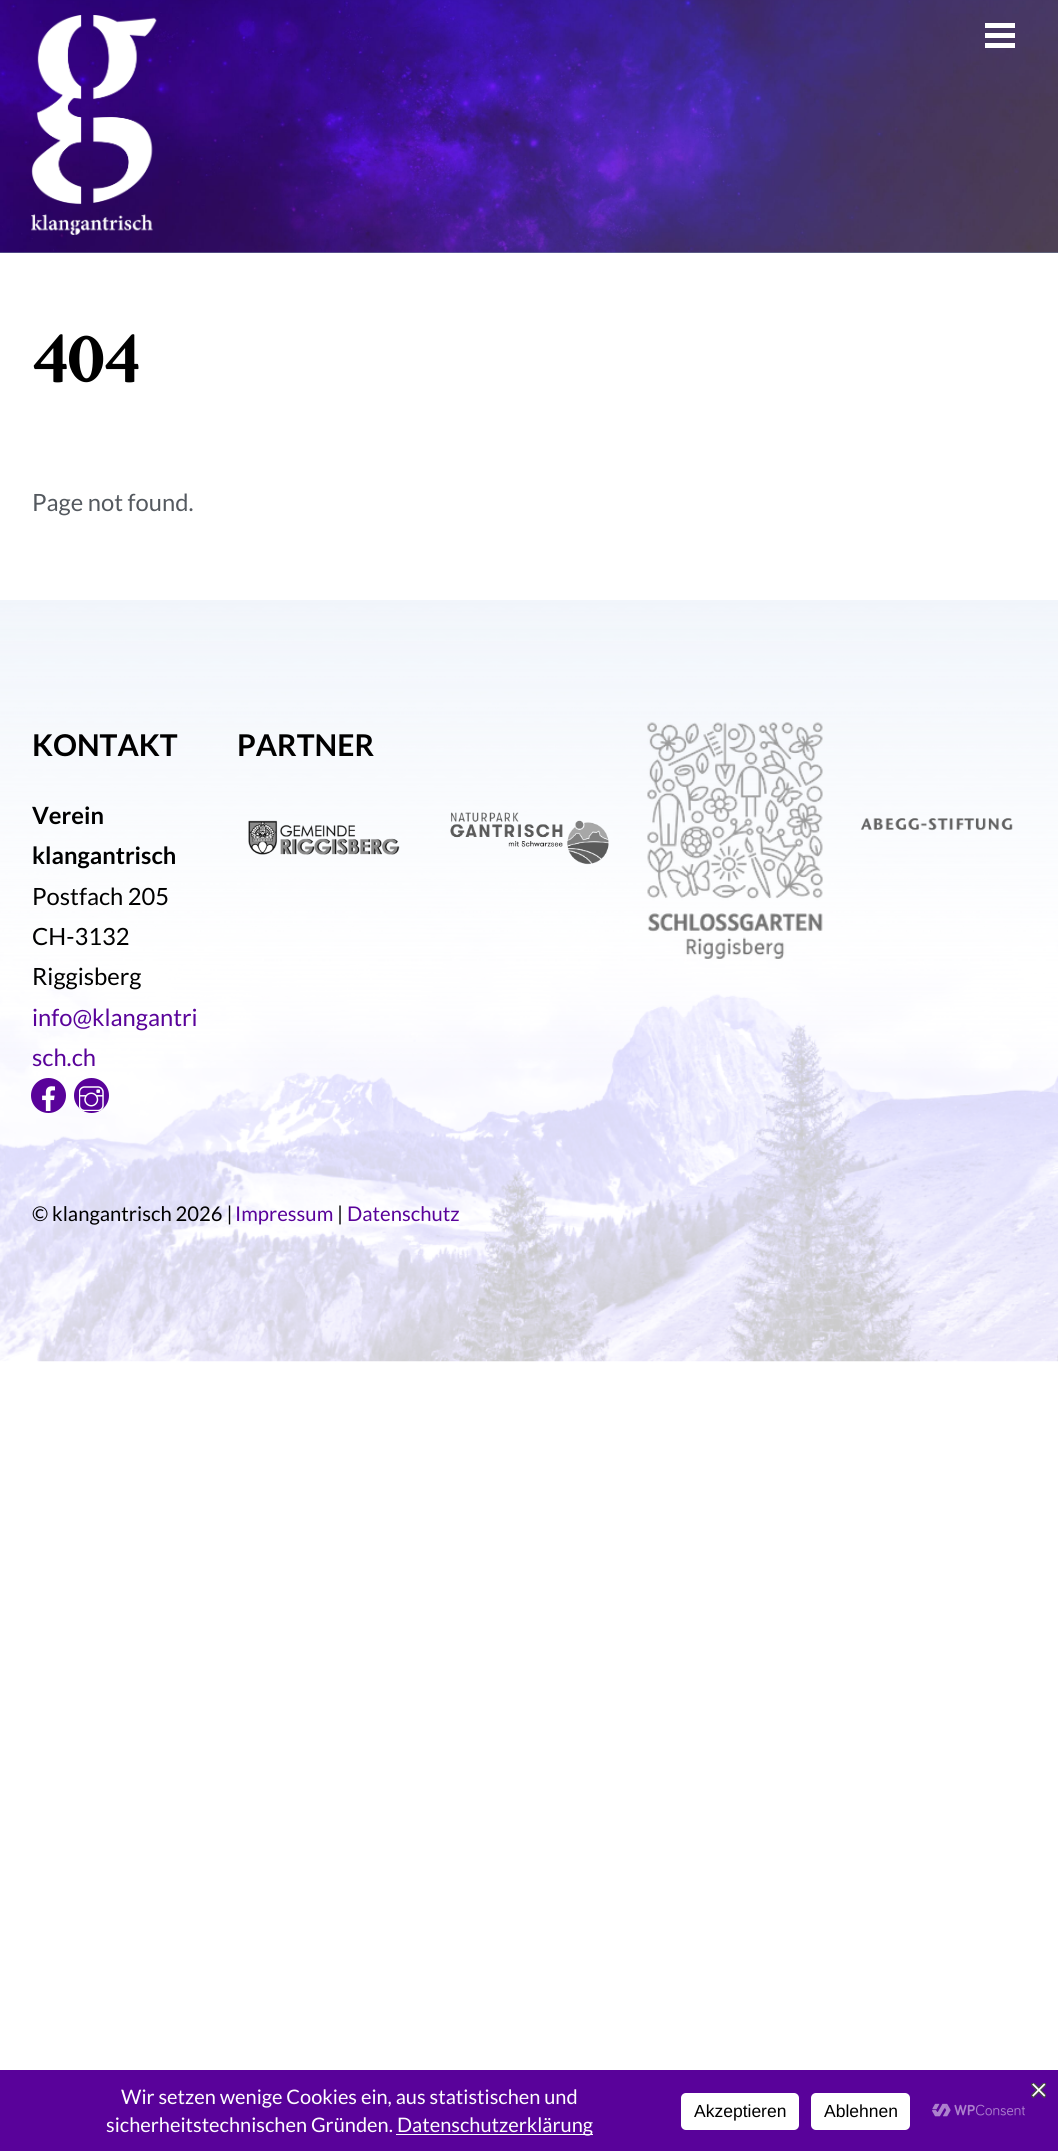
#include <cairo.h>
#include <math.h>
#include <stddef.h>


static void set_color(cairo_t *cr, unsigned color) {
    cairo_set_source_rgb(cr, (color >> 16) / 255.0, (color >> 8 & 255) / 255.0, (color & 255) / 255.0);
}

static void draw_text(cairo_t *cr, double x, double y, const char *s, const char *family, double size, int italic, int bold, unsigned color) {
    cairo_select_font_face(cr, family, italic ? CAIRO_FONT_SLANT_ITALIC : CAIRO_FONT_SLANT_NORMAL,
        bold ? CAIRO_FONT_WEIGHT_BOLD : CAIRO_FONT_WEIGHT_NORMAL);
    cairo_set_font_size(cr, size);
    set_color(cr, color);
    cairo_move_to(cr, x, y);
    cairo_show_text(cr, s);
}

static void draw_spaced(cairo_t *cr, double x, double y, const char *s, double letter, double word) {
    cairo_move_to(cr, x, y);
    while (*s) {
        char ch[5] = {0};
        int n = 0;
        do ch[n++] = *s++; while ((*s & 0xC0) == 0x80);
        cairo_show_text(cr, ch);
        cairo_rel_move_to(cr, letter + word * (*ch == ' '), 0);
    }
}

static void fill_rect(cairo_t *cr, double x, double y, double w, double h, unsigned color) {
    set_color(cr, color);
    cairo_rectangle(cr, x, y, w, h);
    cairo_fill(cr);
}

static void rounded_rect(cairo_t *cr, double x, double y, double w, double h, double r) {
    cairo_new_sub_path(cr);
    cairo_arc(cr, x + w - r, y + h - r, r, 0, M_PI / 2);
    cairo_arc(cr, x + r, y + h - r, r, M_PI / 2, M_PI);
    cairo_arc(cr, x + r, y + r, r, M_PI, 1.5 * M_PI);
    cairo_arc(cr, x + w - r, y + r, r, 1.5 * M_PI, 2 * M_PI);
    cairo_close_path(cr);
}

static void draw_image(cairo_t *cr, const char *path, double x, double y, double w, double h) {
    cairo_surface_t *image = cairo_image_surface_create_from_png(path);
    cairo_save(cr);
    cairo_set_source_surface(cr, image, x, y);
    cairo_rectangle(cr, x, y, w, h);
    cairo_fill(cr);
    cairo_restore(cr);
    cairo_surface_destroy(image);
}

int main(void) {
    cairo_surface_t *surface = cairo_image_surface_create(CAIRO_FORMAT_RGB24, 1058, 2151);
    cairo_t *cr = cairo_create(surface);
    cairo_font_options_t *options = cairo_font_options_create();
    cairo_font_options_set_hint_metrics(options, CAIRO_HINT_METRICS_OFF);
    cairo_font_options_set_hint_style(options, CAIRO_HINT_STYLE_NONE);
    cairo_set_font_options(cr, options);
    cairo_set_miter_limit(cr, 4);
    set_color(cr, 0xFFFFFF);
    cairo_paint(cr);
    fill_rect(cr, 0, 252, 1058, 1, 0x7486A1);
    draw_image(cr, "assets/img1.png", 0, 0, 1058, 253);
    draw_image(cr, "assets/img2.png", 31, 15, 126, 220);
    fill_rect(cr, 985, 23, 30, 5, 0xFFFFFF);
    fill_rect(cr, 985, 43, 30, 5, 0xFFFFFF);
    fill_rect(cr, 985, 33, 30, 5, 0xFFFFFF);
    cairo_select_font_face(cr, "Crimson Text", CAIRO_FONT_SLANT_NORMAL, CAIRO_FONT_WEIGHT_BOLD);
    cairo_set_font_size(cr, 76);
    set_color(cr, 0x000000);
    draw_spaced(cr, 32, 382, "404", -1.5, 0);
    draw_text(cr, 32, 511, "Page not found.", "Lato", 23.75, 0, 0, 0x54595F);
    draw_image(cr, "assets/img3.png", 0, 600, 1058, 762);
    draw_text(cr, 32, 756, "KONTAKT", "Lato", 30, 0, 1, 0x000000);
    draw_text(cr, 32, 824, "Verein", "Lato", 23.75, 0, 1, 0x000000);
    draw_text(cr, 32, 864, "klangantrisch", "Lato", 23.75, 0, 1, 0x000000);
    draw_text(cr, 32, 905, "Postfach 205", "Lato", 23.75, 0, 0, 0x000000);
    draw_text(cr, 32, 945, "CH-3132", "Lato", 23.75, 0, 0, 0x000000);
    draw_text(cr, 32, 985, "Riggisberg", "Lato", 23.75, 0, 0, 0x000000);
    draw_text(cr, 32, 1026, "info@klangantri", "Lato", 23.75, 0, 0, 0x59029A);
    draw_text(cr, 32, 1066, "sch.ch", "Lato", 23.75, 0, 0, 0x59029A);
    cairo_new_path(cr);
    cairo_arc(cr, 48.5, 1095.5, 17.5, 0, 2 * M_PI);
    cairo_fill(cr);
    draw_image(cr, "assets/img4.png", 42, 1086, 13, 25);
    cairo_arc(cr, 91.5, 1095.5, 17.5, 0, 2 * M_PI);
    cairo_fill(cr);
    draw_image(cr, "assets/img5.png", 79, 1086, 25, 25);
    draw_text(cr, 237, 756, "PARTNER", "Lato", 30, 0, 1, 0x000000);
    draw_image(cr, "assets/img6.png", 248, 820, 152, 35);
    draw_image(cr, "assets/img7.png", 647, 722, 176, 237);
    draw_image(cr, "assets/img8.png", 450, 812, 159, 53);
    draw_image(cr, "assets/img9.png", 860, 818, 153, 13);
    draw_text(cr, 32, 1221, "© klangantrisch 2026 |", "Lato", 20.25, 0, 0, 0x000000);
    draw_text(cr, 235, 1221, "Impressum", "Lato", 20.25, 0, 0, 0x59029A);
    draw_text(cr, 337, 1221, "|", "Lato", 20.25, 0, 0, 0x000000);
    draw_text(cr, 347, 1221, "Datenschutz", "Lato", 20.25, 0, 0, 0x59029A);
    fill_rect(cr, 0, 2070, 1058, 81, 0x59029A);
    draw_text(cr, 121, 2104, "Wir setzen wenige Cookies ein, aus statistischen und", "Lato", 20, 0, 0, 0xFFFFFF);
    draw_text(cr, 106, 2132, "sicherheitstechnischen Gründen.", "Lato", 20, 0, 0, 0xFFFFFF);
    fill_rect(cr, 396, 2134, 197, 1, 0xFFFFFF);
    draw_text(cr, 397, 2132, "Datenschutzerklärung", "Lato", 20, 0, 0, 0xFFFFFF);
    rounded_rect(cr, 681, 2093, 118, 37, 5);
    cairo_fill(cr);
    draw_text(cr, 694, 2117, "Akzeptieren", "Liberation Sans", 17.5, 0, 0, 0x000000);
    set_color(cr, 0xFFFFFF);
    rounded_rect(cr, 811, 2093, 99, 37, 5);
    cairo_fill(cr);
    draw_text(cr, 824, 2117, "Ablehnen", "Liberation Sans", 17.5, 0, 0, 0x000000);
    draw_image(cr, "assets/img10.png", 932, 2103, 93, 14);
    draw_image(cr, "assets/img11.png", 1031, 2083, 15, 15);
    cairo_surface_write_to_png(surface, "output.png");
    cairo_font_options_destroy(options);
    cairo_destroy(cr);
    cairo_surface_destroy(surface);
    return 0;
}
